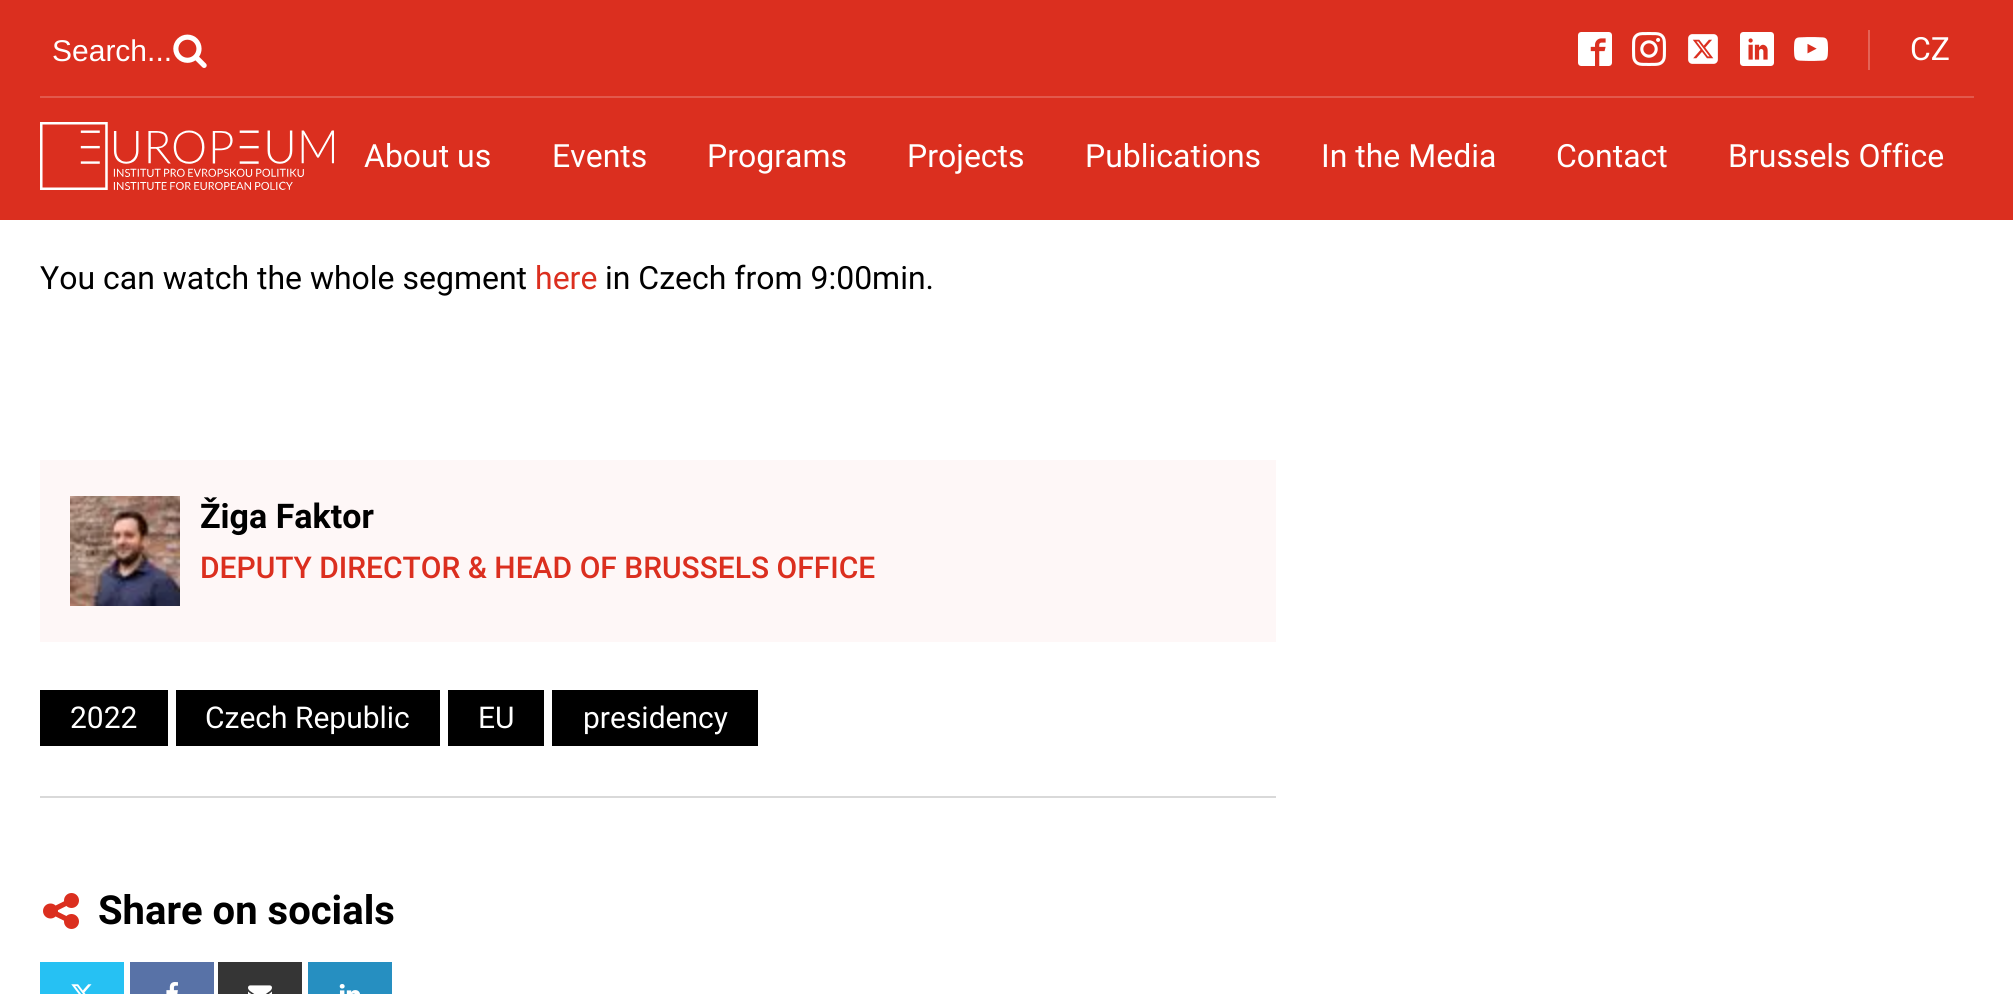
#include <cairo.h>
#include <math.h>
#include <stddef.h>


static void set_color(cairo_t *cr, unsigned color) {
    cairo_set_source_rgb(cr, (color >> 16) / 255.0, (color >> 8 & 255) / 255.0, (color & 255) / 255.0);
}

static void draw_text(cairo_t *cr, double x, double y, const char *s, const char *family, double size, int italic, int bold, unsigned color) {
    cairo_select_font_face(cr, family, italic ? CAIRO_FONT_SLANT_ITALIC : CAIRO_FONT_SLANT_NORMAL,
        bold ? CAIRO_FONT_WEIGHT_BOLD : CAIRO_FONT_WEIGHT_NORMAL);
    cairo_set_font_size(cr, size);
    set_color(cr, color);
    cairo_move_to(cr, x, y);
    cairo_show_text(cr, s);
}

static void fill_rect(cairo_t *cr, double x, double y, double w, double h, unsigned color) {
    set_color(cr, color);
    cairo_rectangle(cr, x, y, w, h);
    cairo_fill(cr);
}

static void draw_image(cairo_t *cr, const char *path, double x, double y, double w, double h) {
    cairo_surface_t *image = cairo_image_surface_create_from_png(path);
    cairo_save(cr);
    cairo_set_source_surface(cr, image, x, y);
    cairo_rectangle(cr, x, y, w, h);
    cairo_fill(cr);
    cairo_restore(cr);
    cairo_surface_destroy(image);
}

int main(void) {
    cairo_surface_t *surface = cairo_image_surface_create(CAIRO_FORMAT_RGB24, 2013, 994);
    cairo_t *cr = cairo_create(surface);
    cairo_font_options_t *options = cairo_font_options_create();
    cairo_font_options_set_hint_metrics(options, CAIRO_HINT_METRICS_OFF);
    cairo_font_options_set_hint_style(options, CAIRO_HINT_STYLE_NONE);
    cairo_set_font_options(cr, options);
    cairo_set_miter_limit(cr, 4);
    set_color(cr, 0xFFFFFF);
    cairo_paint(cr);
    fill_rect(cr, 0, 0, 2013, 220, 0xDB2F1F);
    fill_rect(cr, 40, 96, 1934, 2, 0xE2594C);
    draw_text(cr, 52, 61, "Search...", "Liberation Sans", 30, 0, 0, 0xFFFFFF);
    draw_image(cr, "assets/img1.png", 173, 34, 34, 34);
    draw_image(cr, "assets/img2.png", 1578, 32, 34, 34);
    draw_image(cr, "assets/img3.png", 1632, 32, 34, 34);
    draw_image(cr, "assets/img4.png", 1688, 34, 30, 30);
    draw_image(cr, "assets/img5.png", 1740, 32, 34, 34);
    draw_image(cr, "assets/img6.png", 1794, 37, 34, 24);
    fill_rect(cr, 1868, 30, 2, 40, 0xE46357);
    draw_text(cr, 1910, 60, "CZ", "Roboto", 32, 0, 0, 0xFFFFFF);
    draw_image(cr, "assets/img7.png", 40, 122, 294, 68);
    draw_text(cr, 364, 167, "About us", "Roboto", 32, 0, 0, 0xFFFFFF);
    draw_text(cr, 552, 167, "Events", "Roboto", 32, 0, 0, 0xFFFFFF);
    draw_text(cr, 707, 167, "Programs", "Roboto", 32, 0, 0, 0xFFFFFF);
    draw_text(cr, 907, 167, "Projects", "Roboto", 32, 0, 0, 0xFFFFFF);
    draw_text(cr, 1085, 167, "Publications", "Roboto", 32, 0, 0, 0xFFFFFF);
    draw_text(cr, 1321, 167, "In the Media", "Roboto", 32, 0, 0, 0xFFFFFF);
    draw_text(cr, 1556, 167, "Contact", "Roboto", 32, 0, 0, 0xFFFFFF);
    draw_text(cr, 1728, 167, "Brussels Office", "Roboto", 32, 0, 0, 0xFFFFFF);
    draw_text(cr, 40, 289, "You can watch the whole segment", "Roboto", 32, 0, 0, 0x000000);
    draw_text(cr, 535, 289, "here", "Roboto", 32, 0, 0, 0xDB2F1F);
    draw_text(cr, 605, 289, "in Czech from 9:00min.", "Roboto", 32, 0, 0, 0x000000);
    fill_rect(cr, 40, 796, 1236, 2, 0xD9D9D9);
    fill_rect(cr, 40, 460, 1236, 182, 0xFEF7F7);
    draw_image(cr, "assets/img8.png", 70, 496, 110, 110);
    draw_text(cr, 200, 528, "Žiga Faktor", "Roboto", 34, 0, 1, 0x000000);
    draw_text(cr, 200, 578, "DEPUTY DIRECTOR & HEAD OF BRUSSELS OFFICE", "Roboto Medium", 30, 0, 0, 0xDB2F1F);
    fill_rect(cr, 40, 690, 128, 56, 0x000000);
    draw_text(cr, 70, 728, "2022", "Roboto", 30, 0, 0, 0xFFFFFF);
    fill_rect(cr, 176, 690, 264, 56, 0x000000);
    draw_text(cr, 205, 728, "Czech Republic", "Roboto", 30, 0, 0, 0xFFFFFF);
    fill_rect(cr, 448, 690, 96, 56, 0x000000);
    draw_text(cr, 478, 728, "EU", "Roboto", 30, 0, 0, 0xFFFFFF);
    fill_rect(cr, 552, 690, 206, 56, 0x000000);
    draw_text(cr, 583, 728, "presidency", "Roboto", 30, 0, 0, 0xFFFFFF);
    draw_image(cr, "assets/img9.png", 43, 893, 36, 36);
    draw_text(cr, 98, 924, "Share on socials", "Roboto", 40, 0, 1, 0x000000);
    fill_rect(cr, 40, 962, 84, 32, 0x26C1F3);
    draw_image(cr, "assets/img10.png", 71, 984, 21, 10);
    fill_rect(cr, 130, 962, 84, 32, 0x5872A7);
    draw_image(cr, "assets/img11.png", 166, 982, 12, 12);
    fill_rect(cr, 218, 962, 84, 32, 0x353535);
    draw_image(cr, "assets/img12.png", 248, 985, 24, 9);
    fill_rect(cr, 308, 962, 84, 32, 0x268FC1);
    draw_image(cr, "assets/img13.png", 339, 984, 21, 10);
    cairo_surface_write_to_png(surface, "output.png");
    cairo_font_options_destroy(options);
    cairo_destroy(cr);
    cairo_surface_destroy(surface);
    return 0;
}
